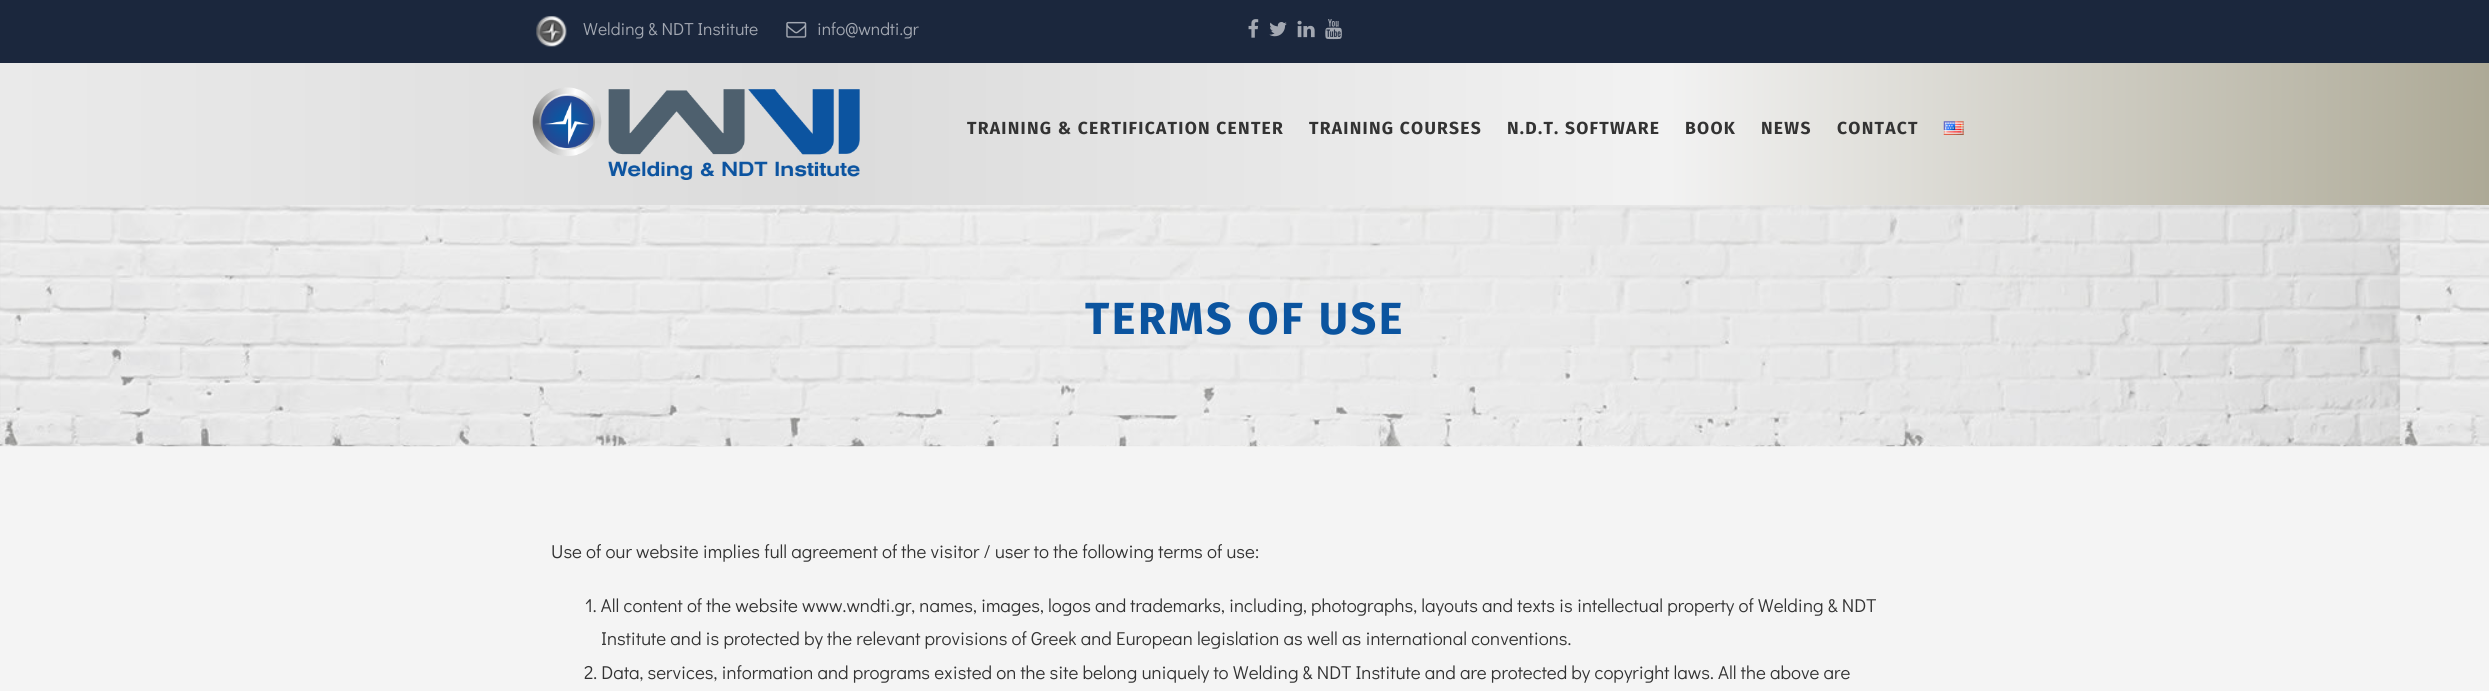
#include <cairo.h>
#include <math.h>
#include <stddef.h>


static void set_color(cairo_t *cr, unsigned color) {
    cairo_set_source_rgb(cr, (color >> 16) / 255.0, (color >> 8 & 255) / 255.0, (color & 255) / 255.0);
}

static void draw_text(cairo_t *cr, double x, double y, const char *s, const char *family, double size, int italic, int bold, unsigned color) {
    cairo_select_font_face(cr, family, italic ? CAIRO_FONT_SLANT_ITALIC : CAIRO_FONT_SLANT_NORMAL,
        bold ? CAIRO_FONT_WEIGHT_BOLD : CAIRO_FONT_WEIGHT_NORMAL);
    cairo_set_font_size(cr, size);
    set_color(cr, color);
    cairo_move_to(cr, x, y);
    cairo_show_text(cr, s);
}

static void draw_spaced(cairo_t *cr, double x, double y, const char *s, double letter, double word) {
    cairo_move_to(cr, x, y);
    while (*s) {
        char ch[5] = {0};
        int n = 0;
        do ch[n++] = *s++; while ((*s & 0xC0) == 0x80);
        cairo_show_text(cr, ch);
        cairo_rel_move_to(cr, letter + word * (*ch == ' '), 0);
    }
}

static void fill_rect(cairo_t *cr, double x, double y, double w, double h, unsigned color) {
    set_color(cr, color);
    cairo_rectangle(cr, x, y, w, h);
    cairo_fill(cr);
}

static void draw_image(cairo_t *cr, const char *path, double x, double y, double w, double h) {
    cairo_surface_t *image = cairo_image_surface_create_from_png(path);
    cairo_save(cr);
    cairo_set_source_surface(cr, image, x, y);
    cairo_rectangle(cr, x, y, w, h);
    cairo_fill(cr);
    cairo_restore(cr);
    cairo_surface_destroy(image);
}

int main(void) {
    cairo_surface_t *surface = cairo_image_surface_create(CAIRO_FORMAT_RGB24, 2489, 691);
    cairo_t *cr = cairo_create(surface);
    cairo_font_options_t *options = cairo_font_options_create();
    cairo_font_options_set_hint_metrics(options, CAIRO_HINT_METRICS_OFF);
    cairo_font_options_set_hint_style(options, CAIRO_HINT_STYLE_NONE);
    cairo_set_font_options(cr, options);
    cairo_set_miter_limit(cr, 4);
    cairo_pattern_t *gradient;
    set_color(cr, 0xF4F4F4);
    cairo_paint(cr);
    fill_rect(cr, 0, 0, 2489, 63, 0x1B273D);
    draw_image(cr, "assets/img1.png", 536, 16, 31, 31);
    draw_text(cr, 583, 35, "Welding & NDT Institute", "Didact Gothic", 17.5, 0, 0, 0xA3A8B2);
    draw_image(cr, "assets/img2.png", 786, 21, 21, 17);
    draw_text(cr, 817, 35, "info@wndti.gr", "Didact Gothic", 17.5, 0, 0, 0xA3A8B2);
    draw_image(cr, "assets/img3.png", 1248, 19, 11, 19);
    draw_image(cr, "assets/img4.png", 1269, 22, 18, 15);
    draw_image(cr, "assets/img5.png", 1297, 20, 18, 18);
    draw_image(cr, "assets/img6.png", 1325, 19, 17, 21);
    gradient = cairo_pattern_create_linear(0, 134, 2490, 134);
    cairo_pattern_add_color_stop_rgba(gradient, 0, 0.918, 0.918, 0.918, 1);
    cairo_pattern_add_color_stop_rgba(gradient, 0.33, 0.859, 0.859, 0.859, 1);
    cairo_pattern_add_color_stop_rgba(gradient, 0.67, 0.949, 0.949, 0.949, 1);
    cairo_pattern_add_color_stop_rgba(gradient, 1, 0.678, 0.663, 0.588, 1);
    cairo_set_source(cr, gradient);
    cairo_pattern_destroy(gradient);
    cairo_rectangle(cr, 0, 63, 2489, 142);
    cairo_fill(cr);
    draw_image(cr, "assets/img7.png", 532, 87, 328, 93);
    cairo_select_font_face(cr, "Fira Sans", CAIRO_FONT_SLANT_NORMAL, CAIRO_FONT_WEIGHT_BOLD);
    set_color(cr, 0x333333);
    draw_spaced(cr, 967, 134, "TRAINING & CERTIFICATION CENTER", 1.25, 0);
    draw_spaced(cr, 1309, 134, "TRAINING COURSES", 1.25, 0);
    draw_spaced(cr, 1507, 134, "N.D.T. SOFTWARE", 1.25, 0);
    draw_spaced(cr, 1685, 134, "BOOK", 1.25, 0);
    draw_spaced(cr, 1761, 134, "NEWS", 1.25, 0);
    draw_spaced(cr, 1837, 134, "CONTACT", 1.25, 0);
    draw_image(cr, "assets/img8.png", 1943, 121, 21, 14);
    draw_image(cr, "assets/img9.png", 0, 205, 2489, 242);
    cairo_set_font_size(cr, 45);
    set_color(cr, 0x0B549F);
    draw_spaced(cr, 1085, 334, "TERMS OF USE", 2.5, 0);
    draw_text(cr, 551, 558, "Use of our website implies full agreement of the visitor / user to the following terms of use:", "Didact Gothic", 18.75, 0, 0, 0x333333);
    draw_text(cr, 585, 612, "1. All content of the website www.wndti.gr, names, images, logos and trademarks, including, photographs, layouts and texts is intellectual property of Welding & NDT", "Didact Gothic", 18.75, 0, 0, 0x333333);
    draw_text(cr, 601, 645, "Institute and is protected by the relevant provisions of Greek and European legislation as well as international conventions.", "Didact Gothic", 18.75, 0, 0, 0x333333);
    draw_text(cr, 584, 679, "2. Data, services, information and programs existed on the site belong uniquely to Welding & NDT Institute and are protected by copyright laws. All the above are", "Didact Gothic", 18.75, 0, 0, 0x333333);
    cairo_surface_write_to_png(surface, "output.png");
    cairo_font_options_destroy(options);
    cairo_destroy(cr);
    cairo_surface_destroy(surface);
    return 0;
}
